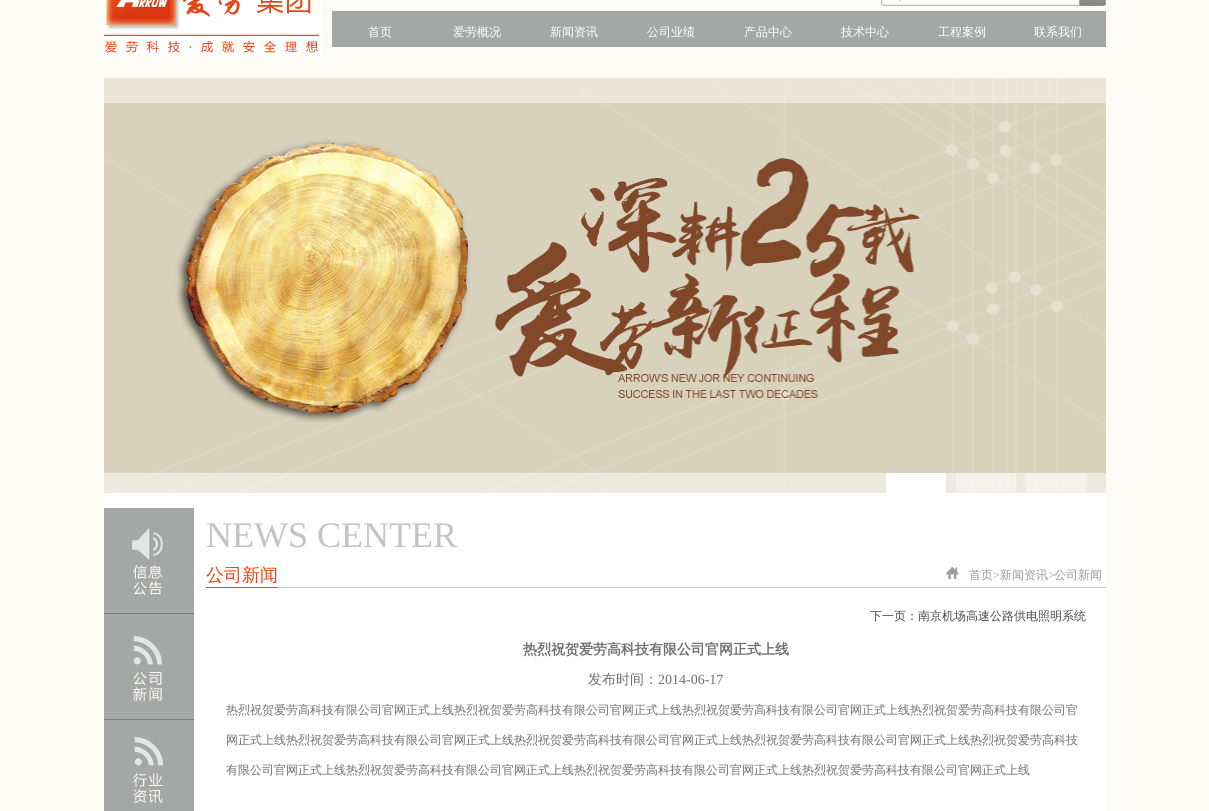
#include <cairo.h>
#include <math.h>
#include <stddef.h>


static void set_color(cairo_t *cr, unsigned color) {
    cairo_set_source_rgb(cr, (color >> 16) / 255.0, (color >> 8 & 255) / 255.0, (color & 255) / 255.0);
}

static void draw_text(cairo_t *cr, double x, double y, const char *s, const char *family, double size, int italic, int bold, unsigned color) {
    cairo_select_font_face(cr, family, italic ? CAIRO_FONT_SLANT_ITALIC : CAIRO_FONT_SLANT_NORMAL,
        bold ? CAIRO_FONT_WEIGHT_BOLD : CAIRO_FONT_WEIGHT_NORMAL);
    cairo_set_font_size(cr, size);
    set_color(cr, color);
    cairo_move_to(cr, x, y);
    cairo_show_text(cr, s);
}

static void fill_rect(cairo_t *cr, double x, double y, double w, double h, unsigned color) {
    set_color(cr, color);
    cairo_rectangle(cr, x, y, w, h);
    cairo_fill(cr);
}

static void draw_image(cairo_t *cr, const char *path, double x, double y, double w, double h) {
    cairo_surface_t *image = cairo_image_surface_create_from_png(path);
    cairo_save(cr);
    cairo_set_source_surface(cr, image, x, y);
    cairo_rectangle(cr, x, y, w, h);
    cairo_fill(cr);
    cairo_restore(cr);
    cairo_surface_destroy(image);
}

int main(void) {
    cairo_surface_t *surface = cairo_image_surface_create(CAIRO_FORMAT_RGB24, 1209, 811);
    cairo_t *cr = cairo_create(surface);
    cairo_font_options_t *options = cairo_font_options_create();
    cairo_font_options_set_hint_metrics(options, CAIRO_HINT_METRICS_OFF);
    cairo_font_options_set_hint_style(options, CAIRO_HINT_STYLE_NONE);
    cairo_set_font_options(cr, options);
    cairo_set_miter_limit(cr, 4);
    set_color(cr, 0xFDFBF6);
    cairo_paint(cr);
    draw_image(cr, "assets/img1.png", 104, 0, 218, 56);
    draw_image(cr, "assets/img2.png", 881, 0, 225, 6);
    fill_rect(cr, 332, 11, 774, 36, 0xA5A6A6);
    draw_text(cr, 368, 36, "首页", "WenQuanYi Zen Hei Medium", 12, 0, 0, 0xFFFFFF);
    draw_text(cr, 453, 36, "爱劳概况", "WenQuanYi Zen Hei Medium", 12, 0, 0, 0xFFFFFF);
    draw_text(cr, 550, 36, "新闻资讯", "WenQuanYi Zen Hei Medium", 12, 0, 0, 0xFFFFFF);
    draw_text(cr, 647, 36, "公司业绩", "WenQuanYi Zen Hei Medium", 12, 0, 0, 0xFFFFFF);
    draw_text(cr, 744, 36, "产品中心", "WenQuanYi Zen Hei Medium", 12, 0, 0, 0xFFFFFF);
    draw_text(cr, 841, 36, "技术中心", "WenQuanYi Zen Hei Medium", 12, 0, 0, 0xFFFFFF);
    draw_text(cr, 938, 36, "工程案例", "WenQuanYi Zen Hei Medium", 12, 0, 0, 0xFFFFFF);
    draw_text(cr, 1034, 36, "联系我们", "WenQuanYi Zen Hei Medium", 12, 0, 0, 0xFFFFFF);
    draw_image(cr, "assets/img3.png", 104, 78, 1002, 415);
    cairo_set_source_rgba(cr, 1, 1, 1, 0.5);
    cairo_rectangle(cr, 104, 473, 1002, 20);
    cairo_fill(cr);
    fill_rect(cr, 886, 473, 60, 20, 0xFFFFFF);
    cairo_set_source_rgba(cr, 1, 1, 1, 0.4);
    cairo_rectangle(cr, 956, 473, 60, 20);
    cairo_fill(cr);
    cairo_rectangle(cr, 1026, 473, 60, 20);
    cairo_fill(cr);
    cairo_set_source_rgba(cr, 0.992, 0.984, 0.969, 0.48);
    cairo_rectangle(cr, 104, 78, 1002, 25);
    cairo_fill(cr);
    fill_rect(cr, 104, 493, 1002, 318, 0xFFFFFF);
    fill_rect(cr, 104, 508, 90, 105, 0xA5A6A6);
    fill_rect(cr, 104, 613, 90, 1, 0x7B7B7B);
    draw_image(cr, "assets/img4.png", 132, 528, 31, 67);
    fill_rect(cr, 104, 614, 90, 105, 0xA5A6A6);
    fill_rect(cr, 104, 719, 90, 1, 0x7B7B7B);
    draw_image(cr, "assets/img5.png", 133, 636, 30, 65);
    fill_rect(cr, 104, 720, 90, 91, 0xA5A6A6);
    draw_image(cr, "assets/img6.png", 133, 737, 31, 66);
    draw_text(cr, 206, 547, "NEWS CENTER", "Liberation Serif", 36, 0, 0, 0xC4C4C4);
    fill_rect(cr, 278, 587, 828, 1, 0xC7C7C7);
    fill_rect(cr, 206, 587, 72, 1, 0xF2410F);
    draw_text(cr, 206, 581, "公司新闻", "WenQuanYi Zen Hei Medium", 18, 0, 0, 0xF2410F);
    draw_image(cr, "assets/img7.png", 946, 567, 13, 12);
    draw_text(cr, 969, 579, "首页", "WenQuanYi Zen Hei Medium", 12, 0, 0, 0x9B9998);
    draw_text(cr, 993, 579, ">", "Liberation Serif", 12, 0, 0, 0x9B9998);
    draw_text(cr, 1000, 579, "新闻资讯", "WenQuanYi Zen Hei Medium", 12, 0, 0, 0x9B9998);
    draw_text(cr, 1048, 579, ">", "Liberation Serif", 12, 0, 0, 0x9B9998);
    draw_text(cr, 1054, 579, "公司新闻", "WenQuanYi Zen Hei Medium", 12, 0, 0, 0x9B9998);
    draw_text(cr, 870, 620, "下一页：南京机场高速公路供电照明系统", "WenQuanYi Zen Hei Medium", 12, 0, 0, 0x494949);
    draw_text(cr, 523, 654, "热烈祝贺爱劳高科技有限公司官网正式上线", "WenQuanYi Zen Hei", 14, 0, 1, 0x6E6F6F);
    draw_text(cr, 588, 684, "发布时间：", "WenQuanYi Zen Hei Medium", 14, 0, 0, 0x6E6F6F);
    draw_text(cr, 658, 684, "2014-06-17", "Liberation Serif", 14, 0, 0, 0x6E6F6F);
    draw_text(cr, 226, 714, "热烈祝贺爱劳高科技有限公司官网正式上线热烈祝贺爱劳高科技有限公司官网正式上线热烈祝贺爱劳高科技有限公司官网正式上线热烈祝贺爱劳高科技有限公司官", "WenQuanYi Zen Hei Medium", 12, 0, 0, 0x6E6F6F);
    draw_text(cr, 226, 744, "网正式上线热烈祝贺爱劳高科技有限公司官网正式上线热烈祝贺爱劳高科技有限公司官网正式上线热烈祝贺爱劳高科技有限公司官网正式上线热烈祝贺爱劳高科技", "WenQuanYi Zen Hei Medium", 12, 0, 0, 0x6E6F6F);
    draw_text(cr, 226, 774, "有限公司官网正式上线热烈祝贺爱劳高科技有限公司官网正式上线热烈祝贺爱劳高科技有限公司官网正式上线热烈祝贺爱劳高科技有限公司官网正式上线", "WenQuanYi Zen Hei Medium", 12, 0, 0, 0x6E6F6F);
    cairo_surface_write_to_png(surface, "output.png");
    cairo_font_options_destroy(options);
    cairo_destroy(cr);
    cairo_surface_destroy(surface);
    return 0;
}
